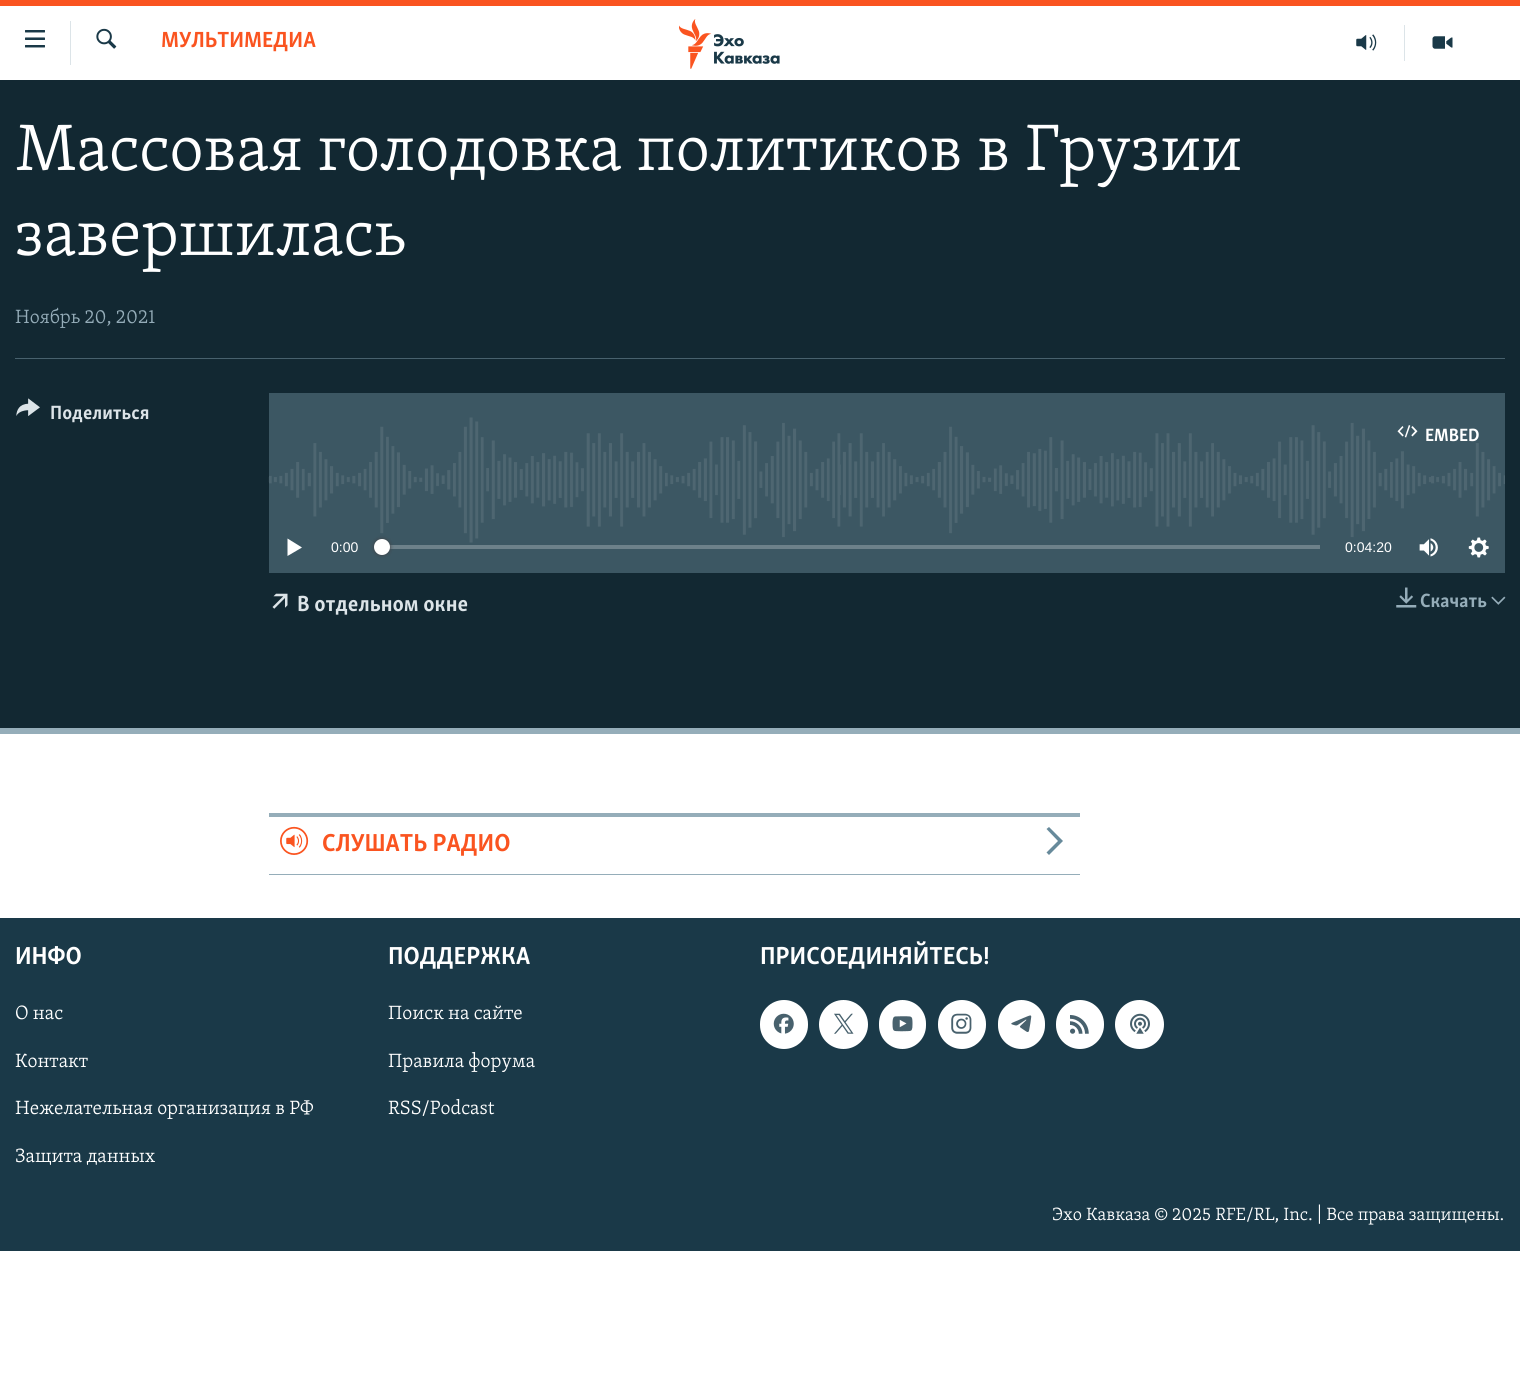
#include <cairo.h>
#include <math.h>
#include <stddef.h>


static void set_color(cairo_t *cr, unsigned color) {
    cairo_set_source_rgb(cr, (color >> 16) / 255.0, (color >> 8 & 255) / 255.0, (color & 255) / 255.0);
}

static void draw_text(cairo_t *cr, double x, double y, const char *s, const char *family, double size, int italic, int bold, unsigned color) {
    cairo_select_font_face(cr, family, italic ? CAIRO_FONT_SLANT_ITALIC : CAIRO_FONT_SLANT_NORMAL,
        bold ? CAIRO_FONT_WEIGHT_BOLD : CAIRO_FONT_WEIGHT_NORMAL);
    cairo_set_font_size(cr, size);
    set_color(cr, color);
    cairo_move_to(cr, x, y);
    cairo_show_text(cr, s);
}

static void fill_rect(cairo_t *cr, double x, double y, double w, double h, unsigned color) {
    set_color(cr, color);
    cairo_rectangle(cr, x, y, w, h);
    cairo_fill(cr);
}

static void rounded_rect(cairo_t *cr, double x, double y, double w, double h, double r) {
    cairo_new_sub_path(cr);
    cairo_arc(cr, x + w - r, y + h - r, r, 0, M_PI / 2);
    cairo_arc(cr, x + r, y + h - r, r, M_PI / 2, M_PI);
    cairo_arc(cr, x + r, y + r, r, M_PI, 1.5 * M_PI);
    cairo_arc(cr, x + w - r, y + r, r, 1.5 * M_PI, 2 * M_PI);
    cairo_close_path(cr);
}

static void draw_shadow(cairo_t *cr, double x, double y, double w, double h, double r, double blur, double alpha) {
    cairo_push_group_with_content(cr, CAIRO_CONTENT_ALPHA);
    cairo_set_operator(cr, CAIRO_OPERATOR_SOURCE);
    for (int i = 15; i >= -15 && fmin(w, h) + blur * i / 3 > 0; i -= 2) {
        double e = blur * i / 6;
        cairo_set_source_rgba(cr, 0, 0, 0, alpha * erfc((i - 1) / 8.5) / 2);
        rounded_rect(cr, x - e, y - e, w + 2 * e, h + 2 * e, fmax(0, fmin(r + e + blur * .6, fmin(w, h) / 2 + e)));
        cairo_fill(cr);
    }
    cairo_pattern_t *soft = cairo_pop_group(cr);
    cairo_mask(cr, soft);
    cairo_pattern_destroy(soft);
}

static void draw_image(cairo_t *cr, const char *path, double x, double y, double w, double h) {
    cairo_surface_t *image = cairo_image_surface_create_from_png(path);
    cairo_save(cr);
    cairo_set_source_surface(cr, image, x, y);
    cairo_rectangle(cr, x, y, w, h);
    cairo_fill(cr);
    cairo_restore(cr);
    cairo_surface_destroy(image);
}

int main(void) {
    cairo_surface_t *surface = cairo_image_surface_create(CAIRO_FORMAT_RGB24, 1520, 1392);
    cairo_t *cr = cairo_create(surface);
    cairo_font_options_t *options = cairo_font_options_create();
    cairo_font_options_set_hint_metrics(options, CAIRO_HINT_METRICS_OFF);
    cairo_font_options_set_hint_style(options, CAIRO_HINT_STYLE_NONE);
    cairo_set_font_options(cr, options);
    cairo_set_miter_limit(cr, 4);
    set_color(cr, 0xFFFFFF);
    cairo_paint(cr);
    fill_rect(cr, 0, 0, 1520, 6, 0xFA5420);
    draw_image(cr, "assets/img1.png", 25, 30, 20, 18);
    fill_rect(cr, 70, 21, 1, 44, 0xDCE4E8);
    draw_image(cr, "assets/img2.png", 96, 28, 21, 21);
    draw_text(cr, 161, 47, "МУЛЬТИМЕДИА", "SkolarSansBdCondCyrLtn", 22.5, 0, 1, 0xFA5420);
    draw_image(cr, "assets/img3.png", 679, 19, 101, 50);
    fill_rect(cr, 1404, 25, 1, 36, 0xDCE4E8);
    draw_image(cr, "assets/img4.png", 1356, 34, 21, 17);
    draw_image(cr, "assets/img5.png", 1432, 36, 21, 13);
    fill_rect(cr, 0, 80, 1520, 648, 0x122832);
    fill_rect(cr, 0, 728, 1520, 6, 0x95ADB9);
    draw_text(cr, 15, 170, "Массовая голодовка политиков в Грузии", "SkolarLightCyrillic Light", 67.5, 0, 0, 0xFFFFFF);
    draw_text(cr, 15, 255, "завершилась", "SkolarLightCyrillic Light", 67.5, 0, 0, 0xFFFFFF);
    draw_text(cr, 15, 323, "Ноябрь 20, 2021", "SkolarLightCyrillic Light", 19.75, 0, 0, 0x95ADB9);
    fill_rect(cr, 15, 358, 1490, 1, 0x48616D);
    draw_image(cr, "assets/img6.png", 16, 398, 24, 18);
    draw_text(cr, 50, 419, "Поделиться", "SkolarSansBdCondCyrLtn", 19.75, 0, 1, 0xDCE4E8);
    fill_rect(cr, 269, 393, 1236, 180, 0x3C5763);
    draw_image(cr, "assets/img7.png", 268, 417, 1237, 126);
    draw_image(cr, "assets/img8.png", 1397, 425, 21, 13);
    draw_text(cr, 1425, 441, "EMBED", "SkolarSansBdCondCyrLtn", 18.25, 0, 1, 0xFFFFFF);
    cairo_new_path(cr);
    cairo_move_to(cr, 287.5, 556);
    cairo_line_to(cr, 302, 547.5);
    cairo_line_to(cr, 287.5, 538.5);
    cairo_close_path(cr);
    cairo_fill(cr);
    draw_text(cr, 331, 552, "0:00", "Liberation Sans", 14, 0, 0, 0xFFFFFF);
    fill_rect(cr, 383, 545, 937, 4, 0x6D818A);
    set_color(cr, 0x414144);
    draw_shadow(cr, 374, 539, 16, 16, 8, 2, 1);
    set_color(cr, 0xFFFFFF);
    cairo_arc(cr, 382, 547, 8, 0, 2 * M_PI);
    cairo_fill(cr);
    draw_text(cr, 1345, 552, "0:04:20", "Liberation Sans", 14, 0, 0, 0xFFFFFF);
    draw_image(cr, "assets/img9.png", 1419, 538, 19, 19);
    draw_image(cr, "assets/img10.png", 1468, 537, 21, 21);
    draw_image(cr, "assets/img11.png", 272, 593, 16, 16);
    draw_text(cr, 297, 611, "В отдельном окне", "SkolarSansBdCondCyrLtn", 22.5, 0, 1, 0xDCE4E8);
    draw_image(cr, "assets/img12.png", 1396, 587, 21, 21);
    draw_text(cr, 1420, 607, "Скачать", "SkolarSansBdCondCyrLtn", 19.75, 0, 1, 0x95ADB9);
    draw_image(cr, "assets/img13.png", 1491, 596, 15, 9);
    fill_rect(cr, 269, 813, 811, 4, 0x95ADB9);
    fill_rect(cr, 269, 874, 811, 1, 0x95ADB9);
    draw_image(cr, "assets/img14.png", 280, 826, 29, 29);
    draw_text(cr, 322, 851, "СЛУШАТЬ РАДИО", "SkolarSansBdCondCyrLtn", 25.25, 0, 1, 0xFA5420);
    set_color(cr, 0x678A9B);
    cairo_new_path(cr);
    cairo_move_to(cr, 1049, 855);
    cairo_line_to(cr, 1063, 841);
    cairo_line_to(cr, 1049, 827);
    cairo_line_to(cr, 1046.5, 829);
    cairo_line_to(cr, 1058, 841);
    cairo_line_to(cr, 1046.5, 852.5);
    cairo_close_path(cr);
    cairo_fill(cr);
    fill_rect(cr, 0, 918, 1520, 333, 0x1A3948);
    draw_text(cr, 15, 964, "ИНФО", "SkolarSansBdCondCyrLtn", 25.25, 0, 1, 0xFFFFFF);
    draw_text(cr, 15, 1019, "О нас", "SkolarLightCyrillic Light", 19.75, 0, 0, 0xFFFFFF);
    draw_text(cr, 15, 1067, "Контакт", "SkolarLightCyrillic Light", 19.75, 0, 0, 0xFFFFFF);
    draw_text(cr, 15, 1114, "Нежелательная организация в РФ", "SkolarLightCyrillic Light", 19.75, 0, 0, 0xFFFFFF);
    draw_text(cr, 15, 1162, "Защита данных", "SkolarLightCyrillic Light", 19.75, 0, 0, 0xFFFFFF);
    draw_text(cr, 388, 964, "ПОДДЕРЖКА", "SkolarSansBdCondCyrLtn", 25.25, 0, 1, 0xFFFFFF);
    draw_text(cr, 388, 1019, "Поиск на сайте", "SkolarLightCyrillic Light", 19.75, 0, 0, 0xFFFFFF);
    draw_text(cr, 388, 1067, "Правила форума", "SkolarLightCyrillic Light", 19.75, 0, 0, 0xFFFFFF);
    draw_text(cr, 388, 1114, "RSS/Podcast", "SkolarLightCyrillic Light", 19.75, 0, 0, 0xFFFFFF);
    draw_text(cr, 760, 964, "ПРИСОЕДИНЯЙТЕСЬ!", "SkolarSansBdCondCyrLtn", 25.25, 0, 1, 0xFFFFFF);
    rounded_rect(cr, 760, 1000, 48, 49, 24);
    cairo_fill(cr);
    draw_image(cr, "assets/img15.png", 773, 1013, 21, 21);
    cairo_arc(cr, 843.5, 1024.5, 24.5, 0, 2 * M_PI);
    cairo_fill(cr);
    draw_image(cr, "assets/img16.png", 834, 1013, 20, 21);
    rounded_rect(cr, 879, 1000, 47, 49, 23.5);
    cairo_fill(cr);
    draw_image(cr, "assets/img17.png", 892, 1016, 21, 16);
    rounded_rect(cr, 938, 1000, 48, 49, 24);
    cairo_fill(cr);
    draw_image(cr, "assets/img18.png", 951, 1013, 21, 21);
    rounded_rect(cr, 998, 1000, 47, 49, 23.5);
    cairo_fill(cr);
    draw_image(cr, "assets/img19.png", 1011, 1015, 21, 17);
    rounded_rect(cr, 1056, 1000, 48, 49, 24);
    cairo_fill(cr);
    draw_image(cr, "assets/img20.png", 1070, 1015, 19, 19);
    cairo_arc(cr, 1139.5, 1024.5, 24.5, 0, 2 * M_PI);
    cairo_fill(cr);
    draw_image(cr, "assets/img21.png", 1130, 1013, 20, 21);
    draw_text(cr, 1052, 1220, "Эхо Кавказа © 2025 RFE/RL, Inc. | Все права защищены.", "SkolarLightCyrillic Light", 18.25, 0, 0, 0xFFFFFF);
    cairo_surface_write_to_png(surface, "output.png");
    cairo_font_options_destroy(options);
    cairo_destroy(cr);
    cairo_surface_destroy(surface);
    return 0;
}
